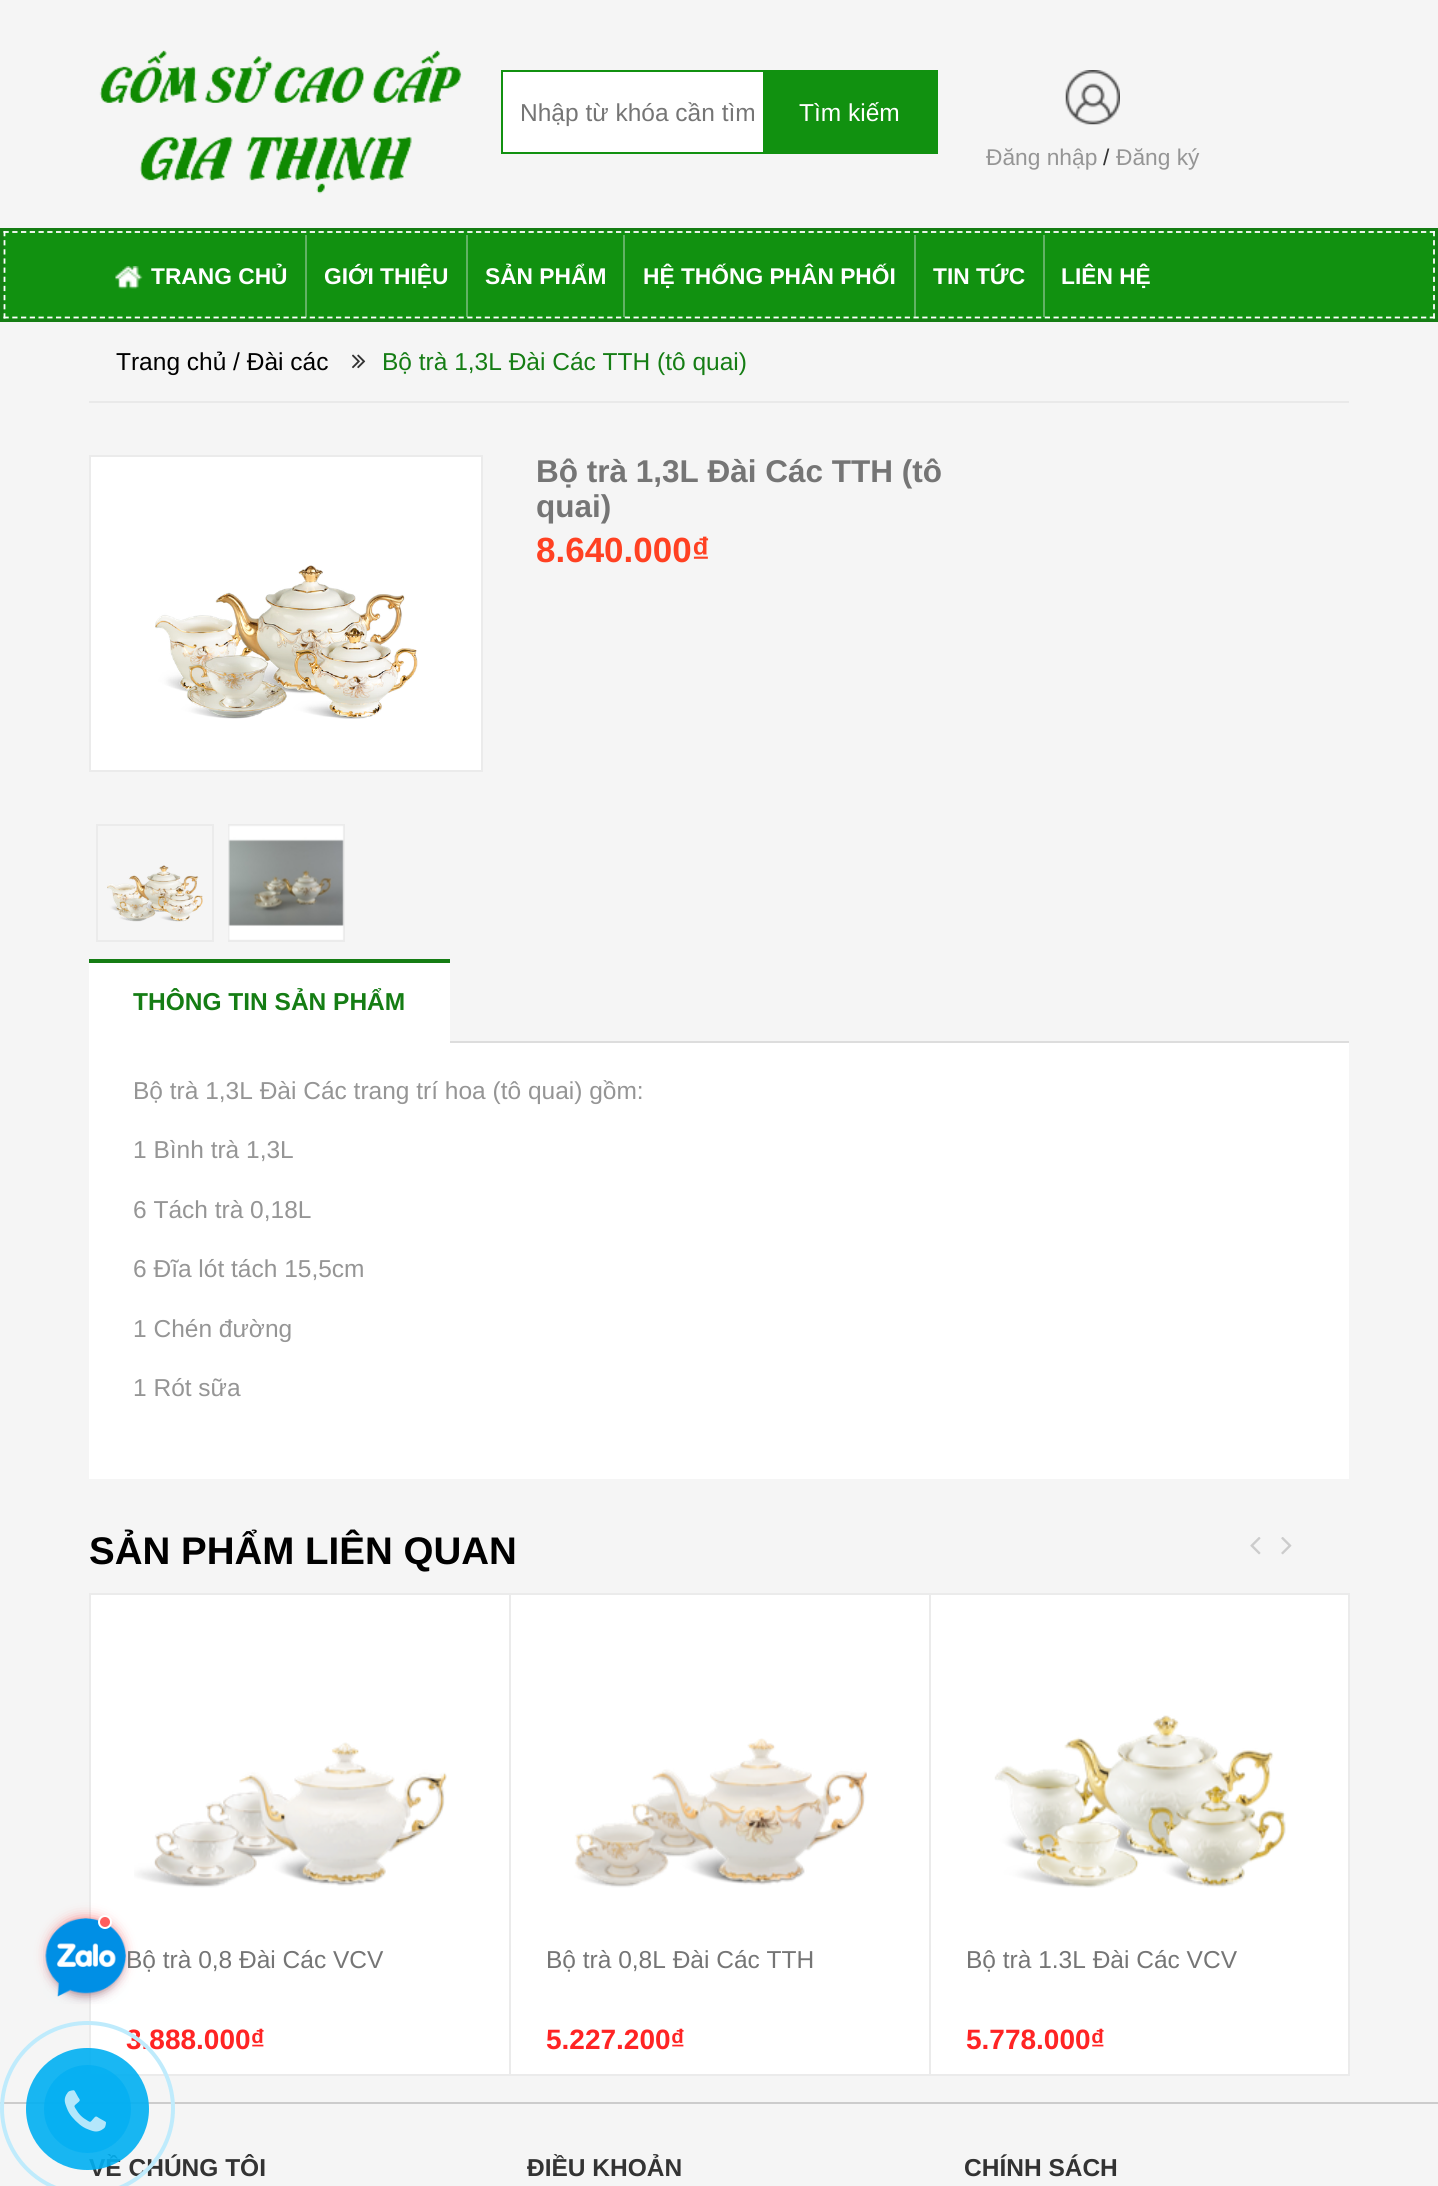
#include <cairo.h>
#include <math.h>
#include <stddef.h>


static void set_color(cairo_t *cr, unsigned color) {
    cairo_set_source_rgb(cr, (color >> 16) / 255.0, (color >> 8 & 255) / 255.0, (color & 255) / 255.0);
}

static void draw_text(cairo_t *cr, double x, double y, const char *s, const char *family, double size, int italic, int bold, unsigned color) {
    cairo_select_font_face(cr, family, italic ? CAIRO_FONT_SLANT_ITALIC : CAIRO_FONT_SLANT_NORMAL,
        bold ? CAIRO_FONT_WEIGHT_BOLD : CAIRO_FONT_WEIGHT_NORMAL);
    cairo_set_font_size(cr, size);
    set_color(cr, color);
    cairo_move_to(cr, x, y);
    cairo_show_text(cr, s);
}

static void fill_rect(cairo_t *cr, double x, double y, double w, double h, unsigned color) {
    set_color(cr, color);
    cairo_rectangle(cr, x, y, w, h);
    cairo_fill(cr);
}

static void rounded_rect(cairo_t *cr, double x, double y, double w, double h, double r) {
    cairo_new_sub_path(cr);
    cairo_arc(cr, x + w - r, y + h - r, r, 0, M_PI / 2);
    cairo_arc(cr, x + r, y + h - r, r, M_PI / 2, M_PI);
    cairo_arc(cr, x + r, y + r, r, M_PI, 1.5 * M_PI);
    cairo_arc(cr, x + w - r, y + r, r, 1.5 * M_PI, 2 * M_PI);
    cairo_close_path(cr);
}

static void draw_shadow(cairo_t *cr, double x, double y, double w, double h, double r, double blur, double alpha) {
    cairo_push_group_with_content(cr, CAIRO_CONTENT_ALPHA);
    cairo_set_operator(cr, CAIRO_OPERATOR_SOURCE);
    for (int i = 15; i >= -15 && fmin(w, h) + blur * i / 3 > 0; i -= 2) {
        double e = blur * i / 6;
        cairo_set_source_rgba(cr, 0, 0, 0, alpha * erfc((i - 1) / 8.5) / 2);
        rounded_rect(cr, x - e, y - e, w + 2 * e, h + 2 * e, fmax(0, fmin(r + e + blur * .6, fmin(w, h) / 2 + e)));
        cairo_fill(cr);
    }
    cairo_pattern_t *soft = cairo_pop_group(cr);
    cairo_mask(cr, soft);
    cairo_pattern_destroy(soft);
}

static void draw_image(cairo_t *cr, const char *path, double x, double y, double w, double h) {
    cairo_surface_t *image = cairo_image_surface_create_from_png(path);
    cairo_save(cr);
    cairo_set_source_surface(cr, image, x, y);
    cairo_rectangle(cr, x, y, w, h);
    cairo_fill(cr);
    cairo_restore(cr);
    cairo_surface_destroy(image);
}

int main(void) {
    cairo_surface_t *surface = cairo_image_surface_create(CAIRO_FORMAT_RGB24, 1438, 2186);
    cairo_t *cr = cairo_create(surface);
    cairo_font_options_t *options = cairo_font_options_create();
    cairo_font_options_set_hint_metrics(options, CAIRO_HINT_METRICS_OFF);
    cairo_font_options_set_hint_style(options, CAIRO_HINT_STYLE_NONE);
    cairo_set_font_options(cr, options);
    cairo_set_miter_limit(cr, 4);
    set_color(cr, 0xF5F5F5);
    cairo_paint(cr);
    draw_image(cr, "assets/img1.png", 99, 50, 363, 144);
    fill_rect(cr, 503, 72, 260, 80, 0xFFFFFF);
    cairo_rectangle(cr, 502, 71, 435, 82);
    set_color(cr, 0x119110);
    cairo_stroke(cr);
    draw_text(cr, 520, 121, "Nhập từ khóa cần tìm", "Liberation Sans", 24.5, 0, 0, 0x757575);
    fill_rect(cr, 763, 72, 173, 80, 0x119110);
    draw_text(cr, 799, 121, "Tìm kiếm", "Liberation Sans", 24.5, 0, 0, 0xFFFFFF);
    draw_image(cr, "assets/img2.png", 1065, 70, 55, 55);
    draw_text(cr, 986, 165, "Đăng nhập", "Liberation Sans", 22.75, 0, 0, 0x959595);
    draw_text(cr, 1103, 165, "/", "Liberation Sans", 22.75, 0, 0, 0x333333);
    draw_text(cr, 1116, 165, "Đăng ký", "Liberation Sans", 22.75, 0, 0, 0x959595);
    fill_rect(cr, 0, 228, 1438, 94, 0x157D14);
    fill_rect(cr, 4, 231, 1431, 88, 0x119110);
    cairo_new_path(cr);
    cairo_move_to(cr, 3.5, 232);
    cairo_line_to(cr, 1435, 232);
    set_color(cr, 0xFFFFFF);
    cairo_set_line_width(cr, 1.8);
    cairo_set_dash(cr, (double[]){5.25, 3.5}, 2, 0);
    cairo_stroke(cr);
    cairo_new_path(cr);
    cairo_move_to(cr, 1434, 231);
    cairo_line_to(cr, 1434, 318.5);
    cairo_set_dash(cr, (double[]){5.25, 3.89}, 2, 0);
    cairo_stroke(cr);
    cairo_new_path(cr);
    cairo_move_to(cr, 3.5, 317.5);
    cairo_line_to(cr, 1435, 317.5);
    cairo_set_dash(cr, (double[]){5.25, 3.5}, 2, 0);
    cairo_stroke(cr);
    cairo_new_path(cr);
    cairo_move_to(cr, 4.5, 231);
    cairo_line_to(cr, 4.5, 318.5);
    cairo_set_dash(cr, (double[]){5.25, 3.89}, 2, 0);
    cairo_stroke(cr);
    cairo_set_source_rgba(cr, 0.886, 0.894, 0.902, 0.39);
    cairo_rectangle(cr, 305, 235, 2, 82);
    cairo_fill(cr);
    draw_image(cr, "assets/img3.png", 115, 266, 28, 23);
    draw_text(cr, 151, 284, "TRANG CHỦ", "Liberation Sans", 22.75, 0, 1, 0xFFFFFF);
    cairo_set_source_rgba(cr, 0.886, 0.894, 0.902, 0.39);
    cairo_rectangle(cr, 466, 235, 2, 82);
    cairo_fill(cr);
    draw_text(cr, 324, 284, "GIỚI THIỆU", "Liberation Sans", 22.75, 0, 1, 0xFFFFFF);
    cairo_set_source_rgba(cr, 0.886, 0.894, 0.902, 0.39);
    cairo_rectangle(cr, 623, 235, 2, 82);
    cairo_fill(cr);
    draw_text(cr, 485, 284, "SẢN PHẨM", "Liberation Sans", 22.75, 0, 1, 0xFFFFFF);
    cairo_set_source_rgba(cr, 0.886, 0.894, 0.902, 0.39);
    cairo_rectangle(cr, 914, 235, 2, 82);
    cairo_fill(cr);
    draw_text(cr, 643, 284, "HỆ THỐNG PHÂN PHỐI", "Liberation Sans", 22.75, 0, 1, 0xFFFFFF);
    cairo_set_source_rgba(cr, 0.886, 0.894, 0.902, 0.39);
    cairo_rectangle(cr, 1043, 235, 2, 82);
    cairo_fill(cr);
    draw_text(cr, 933, 284, "TIN TỨC", "Liberation Sans", 22.75, 0, 1, 0xFFFFFF);
    draw_text(cr, 1061, 284, "LIÊN HỆ", "Liberation Sans", 22.75, 0, 1, 0xFFFFFF);
    fill_rect(cr, 89, 401, 1260, 2, 0xE9E9E9);
    draw_text(cr, 116, 370, "Trang chủ / Đài các", "Liberation Sans", 24.5, 0, 0, 0x000000);
    draw_image(cr, "assets/img4.png", 352, 354, 14, 15);
    draw_text(cr, 382, 370, "Bộ trà 1,3L Đài Các TTH (tô quai)", "Liberation Sans", 24.5, 0, 0, 0x157D14);
    fill_rect(cr, 89, 1593, 2, 483, 0xEBEBEB);
    fill_rect(cr, 91, 1595, 418, 479, 0xFFFFFF);
    set_color(cr, 0xFF5D5D);
    draw_shadow(cr, 51, 1920, 70, 70, 35, 7, 1);
    draw_text(cr, 126, 1968, "Bộ trà 0,8 Đài Các VCV", "Liberation Sans", 24.5, 0, 0, 0x757575);
    draw_image(cr, "assets/img5.png", 43, 1918, 86, 86);
    set_color(cr, 0xFF5D5D);
    cairo_arc(cr, 105, 1922, 6, 0, 2 * M_PI);
    cairo_fill_preserve(cr);
    set_color(cr, 0xFFFFFF);
    cairo_set_line_width(cr, 2);
    cairo_set_dash(cr, NULL, 0, 0);
    cairo_stroke(cr);
    cairo_rectangle(cr, 90, 456, 392, 315);
    cairo_fill_preserve(cr);
    set_color(cr, 0xEBEBEB);
    cairo_stroke(cr);
    draw_image(cr, "assets/img6.png", 155, 565, 263, 154);
    cairo_rectangle(cr, 97, 825, 116, 116);
    cairo_stroke(cr);
    draw_image(cr, "assets/img7.png", 107, 865, 96, 57);
    cairo_rectangle(cr, 229, 825, 115, 116);
    cairo_stroke(cr);
    draw_image(cr, "assets/img8.png", 228, 825, 116, 115);
    draw_text(cr, 536, 482, "Bộ trà 1,3L Đài Các TTH (tô", "Liberation Sans", 31.5, 0, 1, 0x757575);
    draw_text(cr, 536, 517, "quai)", "Liberation Sans", 31.5, 0, 1, 0x757575);
    draw_text(cr, 536, 562, "8.640.000₫", "Liberation Sans", 35, 0, 1, 0xFF4122);
    fill_rect(cr, 450, 1041, 899, 2, 0xDDDDDD);
    fill_rect(cr, 89, 963, 361, 80, 0xFFFFFF);
    fill_rect(cr, 89, 959, 361, 4, 0x157D14);
    draw_text(cr, 133, 1010, "THÔNG TIN SẢN PHẨM", "Liberation Sans", 24.5, 0, 1, 0x157D14);
    fill_rect(cr, 89, 1043, 1260, 436, 0xFFFFFF);
    draw_text(cr, 133, 1099, "Bộ trà 1,3L Đài Các trang trí hoa (tô quai) gồm:", "Liberation Sans", 24.5, 0, 0, 0x959595);
    draw_text(cr, 133, 1158, "1 Bình trà 1,3L", "Liberation Sans", 24.5, 0, 0, 0x959595);
    draw_text(cr, 133, 1218, "6 Tách trà 0,18L", "Liberation Sans", 24.5, 0, 0, 0x959595);
    draw_text(cr, 133, 1277, "6 Đĩa lót tách 15,5cm", "Liberation Sans", 24.5, 0, 0, 0x959595);
    draw_text(cr, 133, 1337, "1 Chén đường", "Liberation Sans", 24.5, 0, 0, 0x959595);
    draw_text(cr, 133, 1396, "1 Rót sữa", "Liberation Sans", 24.5, 0, 0, 0x959595);
    draw_text(cr, 89, 1564, "SẢN PHẨM LIÊN QUAN", "Liberation Sans", 38.5, 0, 1, 0x000000);
    fill_rect(cr, 1348, 1593, 2, 483, 0xEBEBEB);
    draw_image(cr, "assets/img9.png", 1250, 1537, 11, 18);
    draw_image(cr, "assets/img10.png", 1281, 1537, 11, 18);
    fill_rect(cr, 91, 1593, 1257, 2, 0xEBEBEB);
    fill_rect(cr, 509, 1593, 2, 483, 0xEBEBEB);
    fill_rect(cr, 91, 2074, 420, 2, 0xEBEBEB);
    draw_image(cr, "assets/img11.png", 134, 1742, 313, 146);
    draw_text(cr, 126, 2049, "3.888.000₫", "Liberation Sans", 28, 0, 1, 0xFF2424);
    fill_rect(cr, 511, 1595, 418, 479, 0xFFFFFF);
    fill_rect(cr, 929, 1593, 2, 483, 0xEBEBEB);
    fill_rect(cr, 511, 2074, 837, 2, 0xEBEBEB);
    draw_image(cr, "assets/img12.png", 574, 1738, 293, 150);
    draw_text(cr, 546, 1968, "Bộ trà 0,8L Đài Các TTH", "Liberation Sans", 24.5, 0, 0, 0x757575);
    draw_text(cr, 546, 2049, "5.227.200₫", "Liberation Sans", 28, 0, 1, 0xFF2424);
    fill_rect(cr, 931, 1595, 417, 479, 0xFFFFFF);
    draw_image(cr, "assets/img13.png", 994, 1715, 292, 173);
    draw_text(cr, 966, 1968, "Bộ trà 1.3L Đài Các VCV", "Liberation Sans", 24.5, 0, 0, 0x757575);
    draw_text(cr, 966, 2049, "5.778.000₫", "Liberation Sans", 28, 0, 1, 0xFF2424);
    fill_rect(cr, 0, 2102, 1438, 2, 0xCCCCCC);
    draw_text(cr, 89, 2176, "VỀ CHÚNG TÔI", "Liberation Sans", 24.5, 0, 1, 0x333333);
    cairo_new_path(cr);
    cairo_arc(cr, 87.5, 2108.5, 85.5, 0, 2 * M_PI);
    set_color(cr, 0xBFEBFC);
    cairo_set_line_width(cr, 4);
    cairo_stroke(cr);
    cairo_set_source_rgba(cr, 0, 0.686, 0.949, 0.9);
    rounded_rect(cr, 26, 2048, 123, 122, 61);
    cairo_fill(cr);
    cairo_set_source_rgba(cr, 0, 0.686, 0.949, 0.7);
    rounded_rect(cr, 44, 2065, 87, 88, 43.5);
    cairo_fill(cr);
    draw_image(cr, "assets/img14.png", 64, 2090, 42, 42);
    draw_text(cr, 527, 2176, "ĐIỀU KHOẢN", "Liberation Sans", 24.5, 0, 1, 0x333333);
    draw_text(cr, 964, 2176, "CHÍNH SÁCH", "Liberation Sans", 24.5, 0, 1, 0x333333);
    cairo_surface_write_to_png(surface, "output.png");
    cairo_font_options_destroy(options);
    cairo_destroy(cr);
    cairo_surface_destroy(surface);
    return 0;
}
